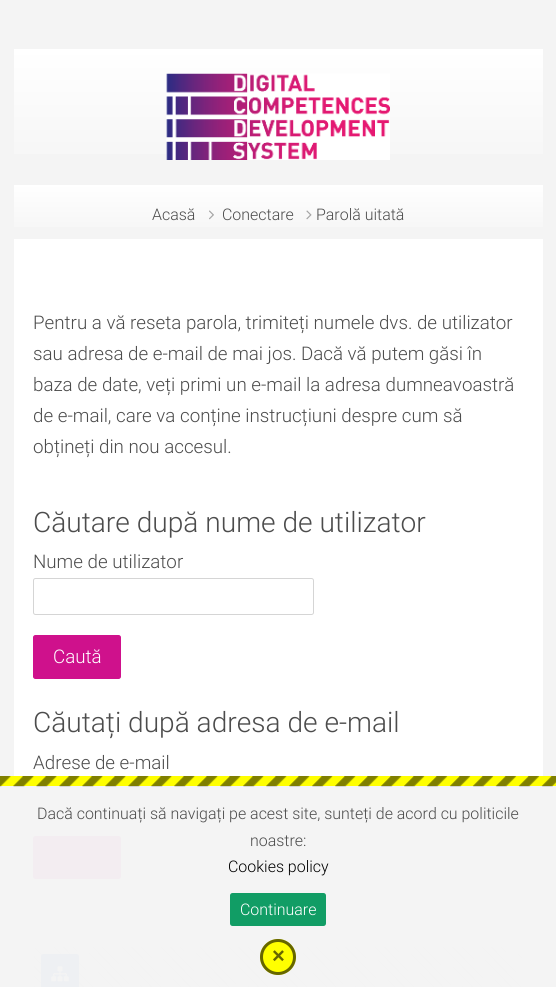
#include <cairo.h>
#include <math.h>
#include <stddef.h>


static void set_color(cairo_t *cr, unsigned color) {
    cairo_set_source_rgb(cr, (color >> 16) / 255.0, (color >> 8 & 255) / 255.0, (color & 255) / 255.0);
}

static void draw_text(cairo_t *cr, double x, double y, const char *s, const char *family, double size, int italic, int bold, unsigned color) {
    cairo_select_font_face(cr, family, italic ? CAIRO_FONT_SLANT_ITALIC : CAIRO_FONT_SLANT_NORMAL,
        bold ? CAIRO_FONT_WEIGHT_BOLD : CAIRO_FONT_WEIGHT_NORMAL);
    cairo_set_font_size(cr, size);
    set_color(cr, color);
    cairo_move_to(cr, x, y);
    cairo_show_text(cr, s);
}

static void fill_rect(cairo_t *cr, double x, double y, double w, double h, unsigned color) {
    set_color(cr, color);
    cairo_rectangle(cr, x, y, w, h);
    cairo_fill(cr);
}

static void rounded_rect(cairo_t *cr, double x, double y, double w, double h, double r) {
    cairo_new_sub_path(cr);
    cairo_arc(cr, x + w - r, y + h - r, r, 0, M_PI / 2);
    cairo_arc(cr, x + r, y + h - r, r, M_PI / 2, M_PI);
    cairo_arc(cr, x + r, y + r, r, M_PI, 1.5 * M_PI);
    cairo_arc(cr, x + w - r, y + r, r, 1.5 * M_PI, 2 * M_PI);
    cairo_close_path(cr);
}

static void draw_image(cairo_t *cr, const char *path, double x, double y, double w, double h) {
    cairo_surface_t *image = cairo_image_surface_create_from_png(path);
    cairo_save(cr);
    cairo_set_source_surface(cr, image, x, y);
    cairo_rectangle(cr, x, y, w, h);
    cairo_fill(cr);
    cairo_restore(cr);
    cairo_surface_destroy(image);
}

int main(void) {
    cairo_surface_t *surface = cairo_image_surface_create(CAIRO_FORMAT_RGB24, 556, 987);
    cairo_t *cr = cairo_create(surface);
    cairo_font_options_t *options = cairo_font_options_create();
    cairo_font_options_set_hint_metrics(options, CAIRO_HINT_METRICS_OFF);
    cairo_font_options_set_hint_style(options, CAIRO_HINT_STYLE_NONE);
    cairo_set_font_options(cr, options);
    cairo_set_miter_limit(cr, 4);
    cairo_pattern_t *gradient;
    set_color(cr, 0xF4F4F4);
    cairo_paint(cr);
    gradient = cairo_pattern_create_linear(278, 49, 278, 185);
    cairo_pattern_add_color_stop_rgba(gradient, 0, 1, 1, 1, 1);
    cairo_pattern_add_color_stop_rgba(gradient, 1, 0.957, 0.957, 0.957, 1);
    cairo_set_source(cr, gradient);
    cairo_pattern_destroy(gradient);
    cairo_rectangle(cr, 14, 49, 529, 105);
    cairo_fill(cr);
    draw_image(cr, "assets/img1.png", 166, 73, 224, 87);
    fill_rect(cr, 14, 239, 529, 537, 0xFFFFFF);
    gradient = cairo_pattern_create_linear(278, 185, 278, 239);
    cairo_pattern_add_color_stop_rgba(gradient, 0, 1, 1, 1, 1);
    cairo_pattern_add_color_stop_rgba(gradient, 1, 0.957, 0.957, 0.957, 1);
    cairo_set_source(cr, gradient);
    cairo_pattern_destroy(gradient);
    cairo_rectangle(cr, 14, 185, 529, 42);
    cairo_fill(cr);
    draw_text(cr, 152, 220, "Acasă", "Roboto Light", 15.95, 0, 0, 0x4C4C4C);
    draw_image(cr, "assets/img2.png", 209, 210, 5, 10);
    draw_text(cr, 222, 220, "Conectare", "Roboto Light", 15.95, 0, 0, 0x4C4C4C);
    draw_image(cr, "assets/img3.png", 306, 210, 6, 10);
    draw_text(cr, 316, 220, "Parolă uitată", "Roboto Light", 15.95, 0, 0, 0x4C4C4C);
    draw_text(cr, 33, 329, "Pentru a vă reseta parola, trimiteți numele dvs. de utilizator", "Roboto Light", 18.75, 0, 0, 0x4C4C4C);
    draw_text(cr, 33, 360, "sau adresa de e-mail de mai jos. Dacă vă putem găsi în", "Roboto Light", 18.75, 0, 0, 0x4C4C4C);
    draw_text(cr, 33, 391, "baza de date, veți primi un e-mail la adresa dumneavoastră", "Roboto Light", 18.75, 0, 0, 0x4C4C4C);
    draw_text(cr, 33, 422, "de e-mail, care va conține instrucțiuni despre cum să", "Roboto Light", 18.75, 0, 0, 0x4C4C4C);
    draw_text(cr, 33, 453, "obțineți din nou accesul.", "Roboto Light", 18.75, 0, 0, 0x4C4C4C);
    draw_text(cr, 33, 532, "Căutare după nume de utilizator", "Roboto Light", 28.1, 0, 0, 0x4C4C4C);
    draw_text(cr, 33, 568, "Nume de utilizator", "Roboto Light", 18.75, 0, 0, 0x4C4C4C);
    rounded_rect(cr, 33.5, 578.5, 280, 36, 2);
    set_color(cr, 0xD5D5D5);
    cairo_set_line_width(cr, 1);
    cairo_stroke(cr);
    set_color(cr, 0xCF118C);
    rounded_rect(cr, 33.5, 635.5, 87, 43, 2);
    cairo_fill_preserve(cr);
    cairo_stroke(cr);
    draw_text(cr, 53, 663, "Caută", "Roboto Light", 18.75, 0, 0, 0xFFFFFF);
    draw_text(cr, 33, 732, "Căutați după adresa de e-mail", "Roboto Light", 28.1, 0, 0, 0x4C4C4C);
    draw_text(cr, 33, 769, "Adrese de e-mail", "Roboto Light", 18.75, 0, 0, 0x4C4C4C);
    set_color(cr, 0xF3EDF1);
    rounded_rect(cr, 33, 836, 88, 43, 2.5);
    cairo_fill(cr);
    draw_image(cr, "assets/img4.png", 34, 946, 488, 41);
    set_color(cr, 0xEEF0F3);
    rounded_rect(cr, 41, 954, 38, 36, 2.5);
    cairo_fill(cr);
    draw_image(cr, "assets/img5.png", 51, 966, 18, 16);
    fill_rect(cr, 0, 776, 556, 10, 0xFFFF00);
    draw_image(cr, "assets/img6.png", 0, 776, 556, 11);
    draw_text(cr, 37, 819, "Dacă continuați să navigați pe acest site, sunteți de acord cu politicile", "Roboto Light", 15.95, 0, 0, 0x4C4C4C);
    draw_text(cr, 250, 846, "noastre:", "Roboto Light", 15.95, 0, 0, 0x4C4C4C);
    draw_text(cr, 228, 872, "Cookies policy", "Roboto Light", 15.95, 0, 0, 0x000000);
    set_color(cr, 0x119D65);
    rounded_rect(cr, 230, 893, 96, 33, 2.5);
    cairo_fill(cr);
    draw_text(cr, 240, 915, "Continuare", "Roboto Light", 15.95, 0, 0, 0xFFFFFF);
    set_color(cr, 0xFFFF00);
    cairo_new_path(cr);
    cairo_arc(cr, 278, 957, 18, 0, 2 * M_PI);
    cairo_fill(cr);
    cairo_arc(cr, 278, 957, 16.5, 0, 2 * M_PI);
    cairo_set_source_rgba(cr, 0, 0, 0, 0.6);
    cairo_set_line_width(cr, 3);
    cairo_stroke(cr);
    draw_text(cr, 272, 963, "×", "Liberation Sans", 22, 0, 1, 0x666600);
    cairo_surface_write_to_png(surface, "output.png");
    cairo_font_options_destroy(options);
    cairo_destroy(cr);
    cairo_surface_destroy(surface);
    return 0;
}
